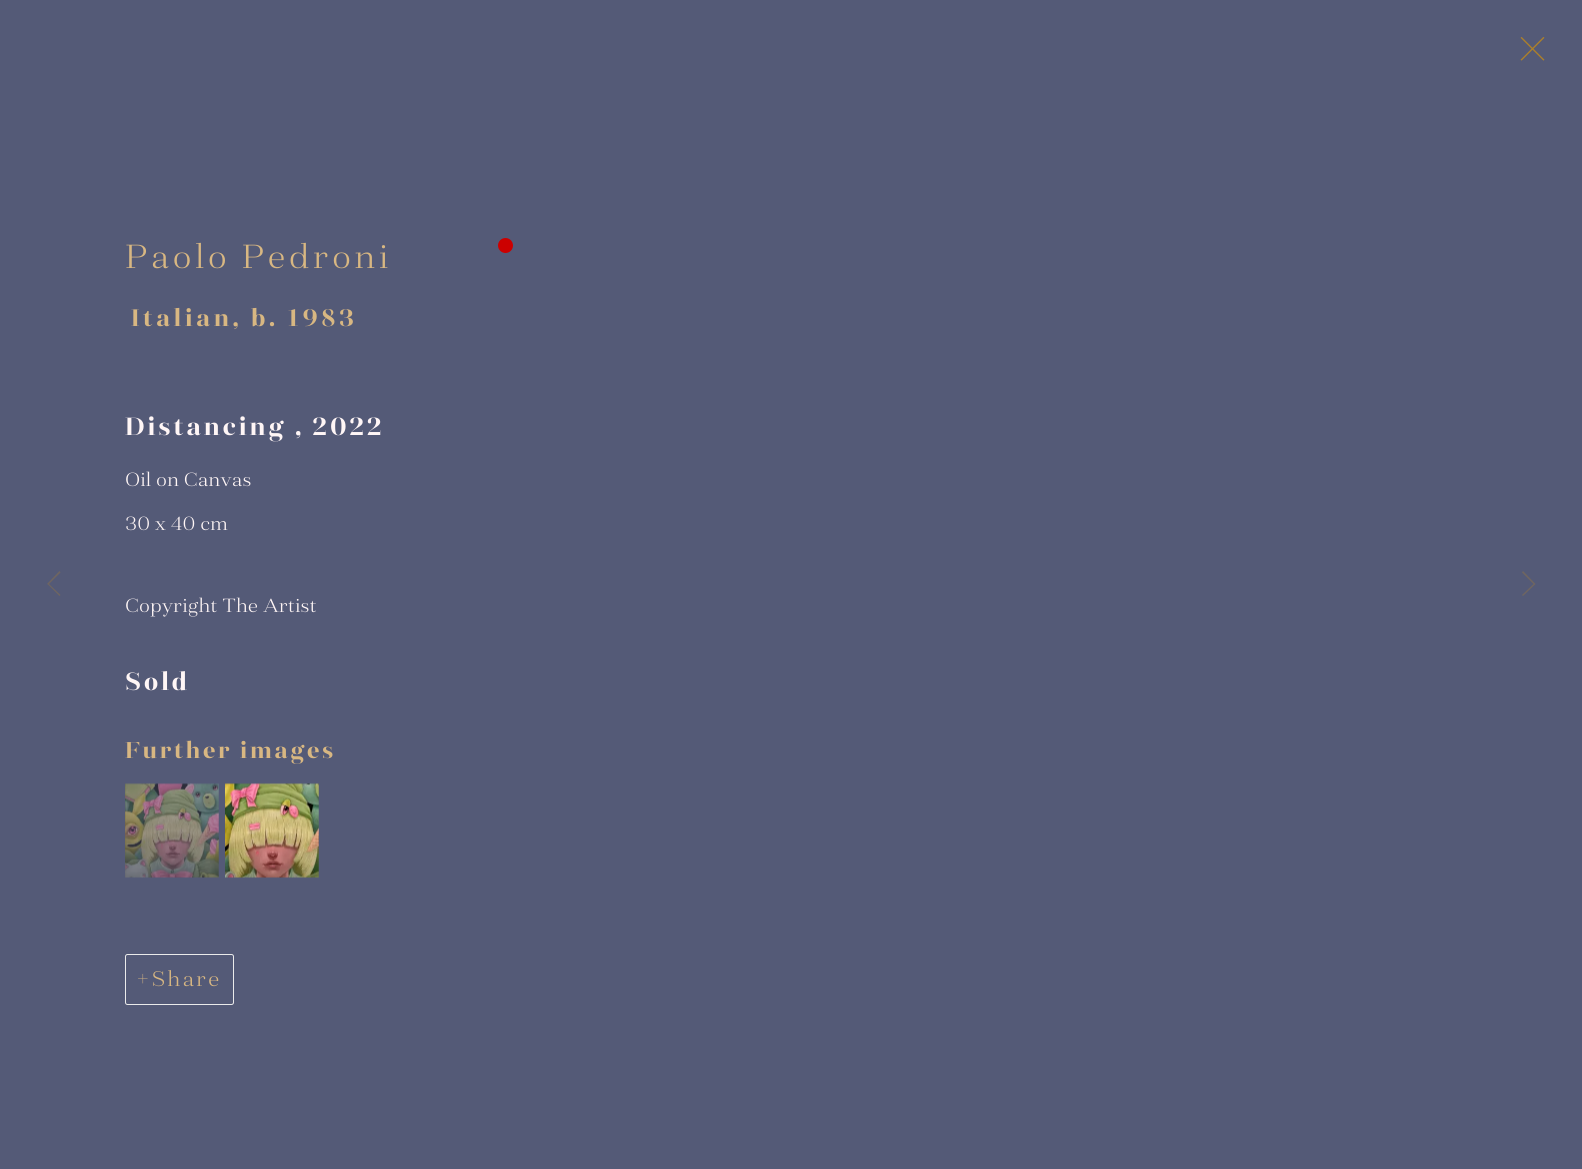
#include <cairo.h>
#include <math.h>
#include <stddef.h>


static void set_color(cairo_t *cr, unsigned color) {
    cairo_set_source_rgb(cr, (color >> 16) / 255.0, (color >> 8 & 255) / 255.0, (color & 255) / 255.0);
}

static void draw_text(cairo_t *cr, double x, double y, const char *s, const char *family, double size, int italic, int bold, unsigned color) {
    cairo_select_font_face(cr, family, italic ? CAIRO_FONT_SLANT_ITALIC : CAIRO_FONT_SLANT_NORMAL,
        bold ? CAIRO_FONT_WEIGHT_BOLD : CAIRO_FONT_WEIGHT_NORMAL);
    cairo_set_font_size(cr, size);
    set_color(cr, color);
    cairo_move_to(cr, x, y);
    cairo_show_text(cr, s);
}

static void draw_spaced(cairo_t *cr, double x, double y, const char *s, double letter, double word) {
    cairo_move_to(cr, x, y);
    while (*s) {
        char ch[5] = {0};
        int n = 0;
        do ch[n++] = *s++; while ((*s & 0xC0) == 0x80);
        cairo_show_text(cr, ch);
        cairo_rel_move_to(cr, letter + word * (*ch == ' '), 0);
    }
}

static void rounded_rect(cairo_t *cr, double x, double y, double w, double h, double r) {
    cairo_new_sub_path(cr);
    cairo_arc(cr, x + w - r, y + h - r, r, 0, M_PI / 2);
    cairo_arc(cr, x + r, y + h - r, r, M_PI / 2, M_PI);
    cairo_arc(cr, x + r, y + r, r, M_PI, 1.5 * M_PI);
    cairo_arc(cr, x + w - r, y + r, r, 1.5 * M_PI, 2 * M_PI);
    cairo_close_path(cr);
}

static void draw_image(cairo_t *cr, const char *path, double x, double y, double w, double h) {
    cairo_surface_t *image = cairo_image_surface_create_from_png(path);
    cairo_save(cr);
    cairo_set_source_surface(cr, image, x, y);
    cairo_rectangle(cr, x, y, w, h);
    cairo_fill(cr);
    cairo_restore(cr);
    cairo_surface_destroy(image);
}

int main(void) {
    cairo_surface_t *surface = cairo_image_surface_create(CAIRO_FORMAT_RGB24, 1582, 1169);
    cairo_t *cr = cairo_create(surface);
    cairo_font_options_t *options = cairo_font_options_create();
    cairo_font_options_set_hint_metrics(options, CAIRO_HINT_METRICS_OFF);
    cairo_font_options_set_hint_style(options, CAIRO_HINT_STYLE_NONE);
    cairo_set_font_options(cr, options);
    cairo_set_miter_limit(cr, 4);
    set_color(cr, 0x545A77);
    cairo_paint(cr);
    draw_image(cr, "assets/img1.png", 1520, 37, 25, 24);
    cairo_select_font_face(cr, "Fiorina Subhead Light", CAIRO_FONT_SLANT_NORMAL, CAIRO_FONT_WEIGHT_NORMAL);
    cairo_set_font_size(cr, 33.25);
    set_color(cr, 0xD8B782);
    draw_spaced(cr, 125, 268, "Paolo Pedroni", 3.3, 0);
    cairo_select_font_face(cr, "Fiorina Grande", CAIRO_FONT_SLANT_NORMAL, CAIRO_FONT_WEIGHT_BOLD);
    cairo_set_font_size(cr, 23.75);
    draw_spaced(cr, 131, 326, "Italian, b. 1983", 3.3, 0);
    set_color(cr, 0xCC0000);
    cairo_new_path(cr);
    cairo_arc(cr, 505.5, 245.5, 7.5, 0, 2 * M_PI);
    cairo_fill(cr);
    cairo_set_font_size(cr, 24.75);
    set_color(cr, 0xFFF6F6);
    draw_spaced(cr, 125, 435, "Distancing , 2022", 2.5, 0);
    draw_text(cr, 125, 486, "Oil on Canvas", "Fiorina Subhead Light", 19, 0, 0, 0xFFF6F6);
    draw_text(cr, 125, 530, "30 x 40 cm", "Fiorina Subhead Light", 19, 0, 0, 0xFFF6F6);
    draw_text(cr, 125, 612, "Copyright The Artist", "Fiorina Subhead Light", 19, 0, 0, 0xFFF6F6);
    cairo_select_font_face(cr, "Fiorina Grande", CAIRO_FONT_SLANT_NORMAL, CAIRO_FONT_WEIGHT_BOLD);
    cairo_set_font_size(cr, 24.75);
    draw_spaced(cr, 125, 690, "Sold", 2.5, 0);
    cairo_set_font_size(cr, 22.75);
    set_color(cr, 0xD8B782);
    draw_spaced(cr, 125, 758, "Further images", 2.25, 0);
    draw_image(cr, "assets/img2.png", 125, 783, 94, 95);
    draw_image(cr, "assets/img3.png", 225, 783, 94, 95);
    rounded_rect(cr, 125.5, 954.5, 108, 50, 2);
    set_color(cr, 0xEBEBEB);
    cairo_set_line_width(cr, 1);
    cairo_stroke(cr);
    cairo_select_font_face(cr, "Fiorina Subhead Light", CAIRO_FONT_SLANT_NORMAL, CAIRO_FONT_WEIGHT_NORMAL);
    cairo_set_font_size(cr, 21);
    set_color(cr, 0xD8B782);
    draw_spaced(cr, 136, 986, "+Share", 2, 0);
    set_color(cr, 0x6F6560);
    cairo_new_path(cr);
    cairo_move_to(cr, 48, 584.5);
    cairo_line_to(cr, 59.5, 596);
    cairo_line_to(cr, 60.5, 595);
    cairo_line_to(cr, 49, 584);
    cairo_line_to(cr, 60.5, 572.5);
    cairo_line_to(cr, 59.5, 571);
    cairo_line_to(cr, 47, 584);
    cairo_close_path(cr);
    cairo_fill(cr);
    cairo_new_path(cr);
    cairo_move_to(cr, 1535.5, 584);
    cairo_line_to(cr, 1523, 571);
    cairo_line_to(cr, 1522, 572.5);
    cairo_line_to(cr, 1533.5, 584);
    cairo_line_to(cr, 1522, 595);
    cairo_line_to(cr, 1523, 596);
    cairo_close_path(cr);
    cairo_fill(cr);
    cairo_surface_write_to_png(surface, "output.png");
    cairo_font_options_destroy(options);
    cairo_destroy(cr);
    cairo_surface_destroy(surface);
    return 0;
}
